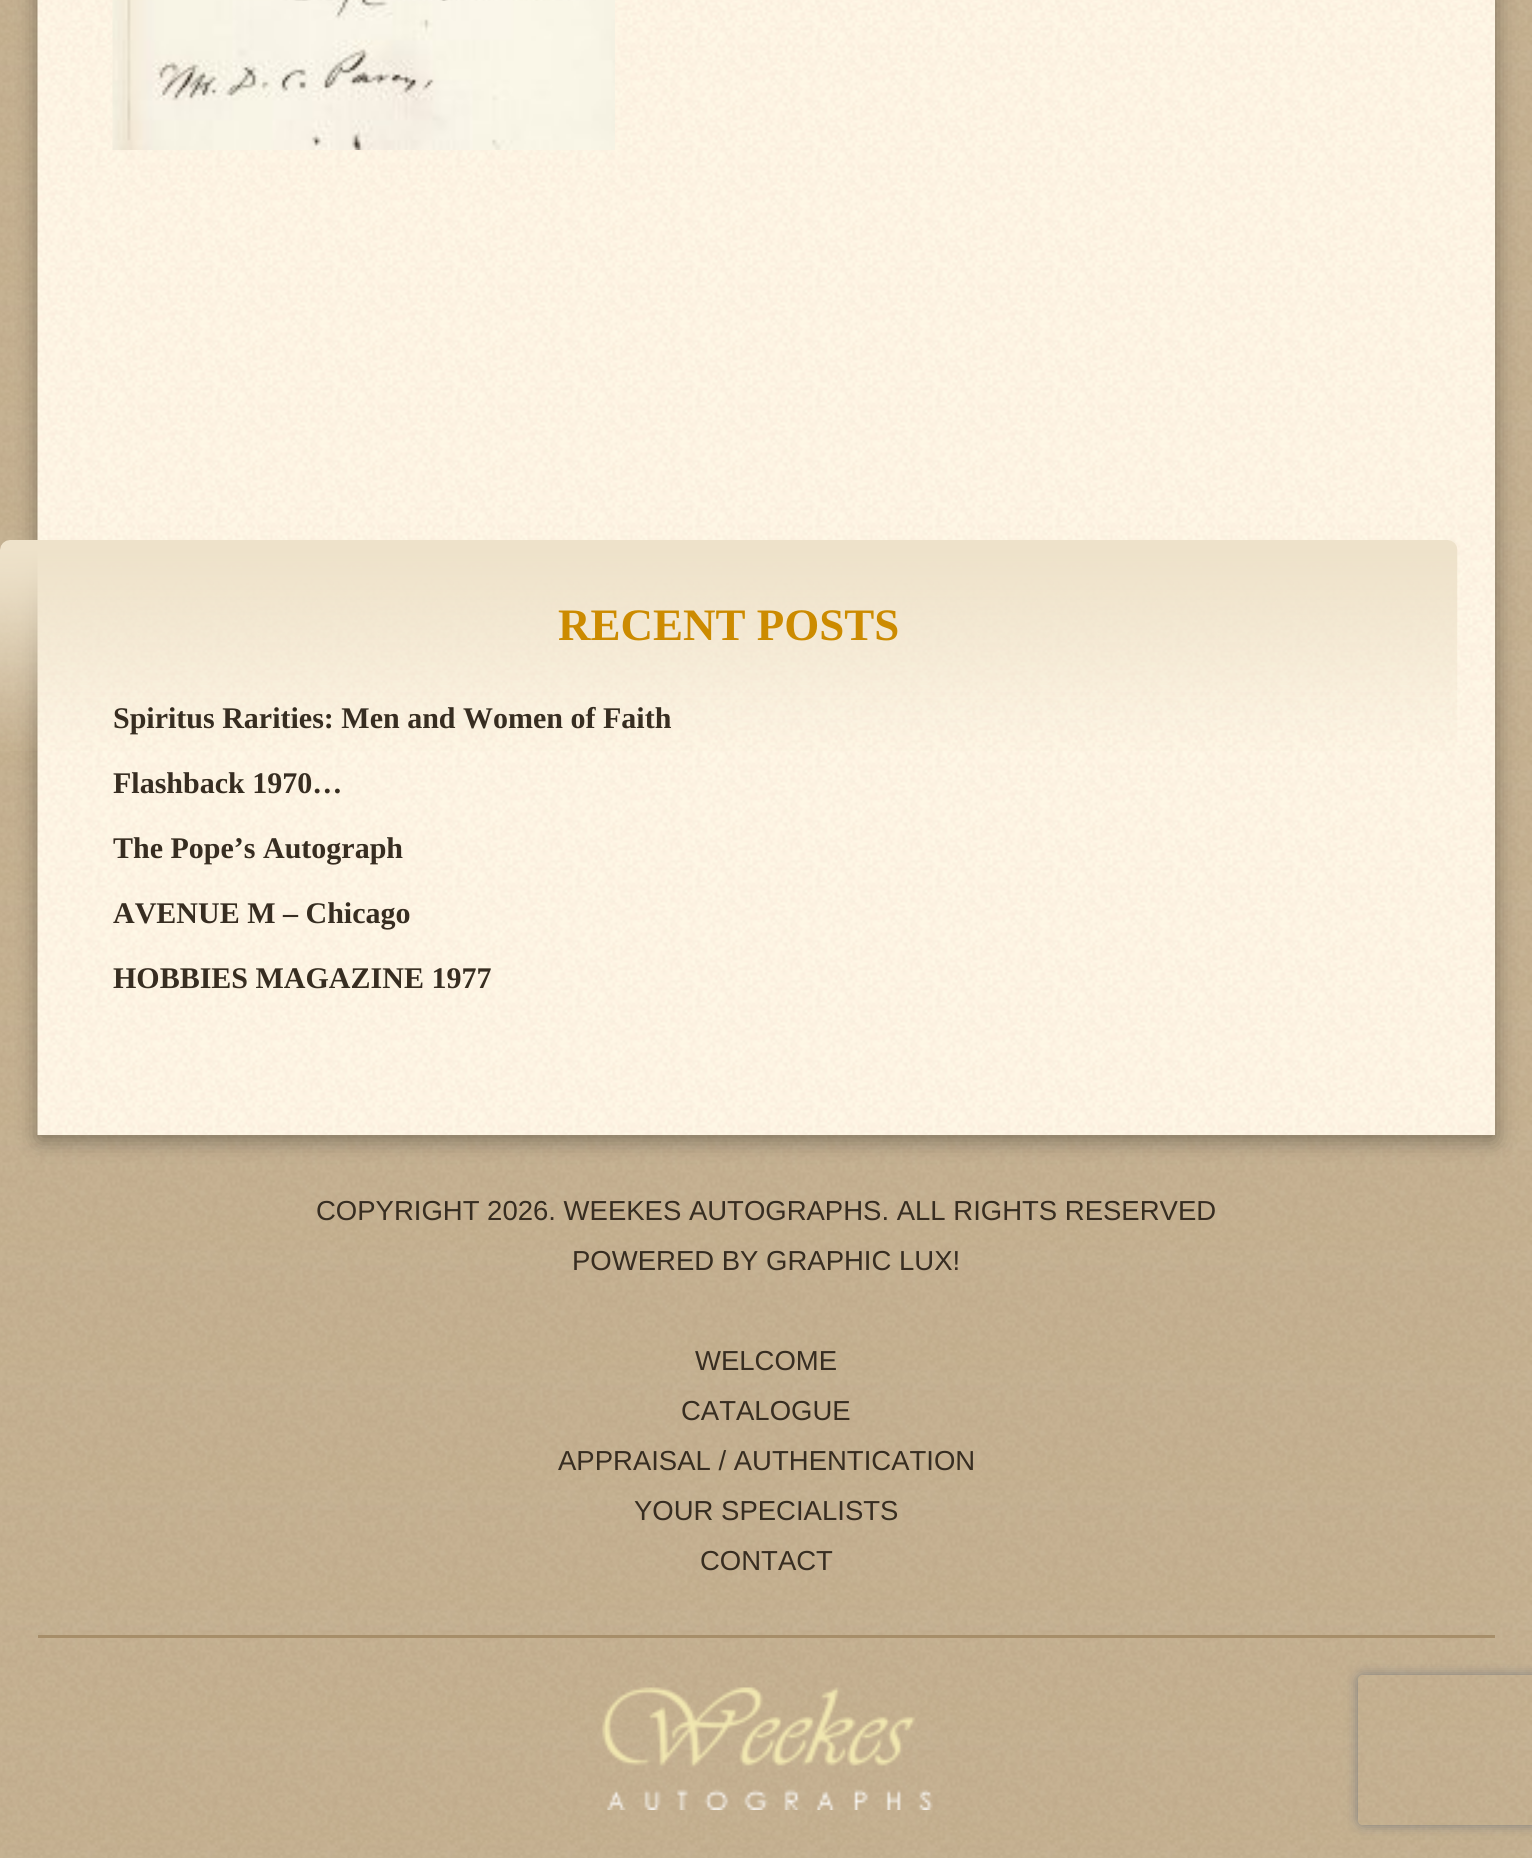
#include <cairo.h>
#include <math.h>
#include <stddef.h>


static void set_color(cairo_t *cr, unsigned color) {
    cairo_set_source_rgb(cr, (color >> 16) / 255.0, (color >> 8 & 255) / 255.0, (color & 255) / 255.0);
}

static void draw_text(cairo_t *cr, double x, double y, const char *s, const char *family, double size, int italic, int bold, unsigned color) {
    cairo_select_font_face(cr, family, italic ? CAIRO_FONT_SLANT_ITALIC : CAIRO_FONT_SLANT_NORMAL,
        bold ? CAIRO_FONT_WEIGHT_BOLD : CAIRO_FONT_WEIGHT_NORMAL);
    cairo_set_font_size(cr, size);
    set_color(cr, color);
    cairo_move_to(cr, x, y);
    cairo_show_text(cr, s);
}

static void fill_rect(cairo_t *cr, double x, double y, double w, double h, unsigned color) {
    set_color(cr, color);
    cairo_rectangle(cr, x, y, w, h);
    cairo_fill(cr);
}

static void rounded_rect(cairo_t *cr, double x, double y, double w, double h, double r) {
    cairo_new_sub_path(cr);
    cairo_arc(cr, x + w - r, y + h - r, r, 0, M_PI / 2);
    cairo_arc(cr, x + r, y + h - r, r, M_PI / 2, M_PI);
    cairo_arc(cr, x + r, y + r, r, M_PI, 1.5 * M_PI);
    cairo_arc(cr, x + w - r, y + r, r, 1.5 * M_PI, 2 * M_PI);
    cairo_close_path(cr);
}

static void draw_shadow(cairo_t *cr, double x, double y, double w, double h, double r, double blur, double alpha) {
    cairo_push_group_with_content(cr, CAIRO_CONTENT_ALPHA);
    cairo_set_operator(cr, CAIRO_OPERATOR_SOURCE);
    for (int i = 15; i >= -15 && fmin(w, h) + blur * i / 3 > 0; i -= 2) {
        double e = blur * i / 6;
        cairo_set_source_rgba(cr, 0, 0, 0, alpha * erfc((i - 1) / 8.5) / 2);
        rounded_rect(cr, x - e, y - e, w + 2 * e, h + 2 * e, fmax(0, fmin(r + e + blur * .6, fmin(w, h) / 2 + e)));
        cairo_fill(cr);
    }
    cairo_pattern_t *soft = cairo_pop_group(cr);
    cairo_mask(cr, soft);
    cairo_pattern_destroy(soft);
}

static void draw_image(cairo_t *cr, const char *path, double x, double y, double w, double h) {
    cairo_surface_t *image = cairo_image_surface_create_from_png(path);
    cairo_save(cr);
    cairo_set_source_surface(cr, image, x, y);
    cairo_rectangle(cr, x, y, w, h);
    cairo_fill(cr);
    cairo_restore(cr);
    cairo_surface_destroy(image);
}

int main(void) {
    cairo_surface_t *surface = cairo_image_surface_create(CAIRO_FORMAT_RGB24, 1532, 1858);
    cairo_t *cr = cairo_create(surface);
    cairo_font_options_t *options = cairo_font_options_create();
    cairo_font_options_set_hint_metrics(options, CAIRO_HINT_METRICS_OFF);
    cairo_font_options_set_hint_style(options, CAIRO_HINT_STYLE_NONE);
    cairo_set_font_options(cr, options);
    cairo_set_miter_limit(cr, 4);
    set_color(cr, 0xFFFFFF);
    cairo_paint(cr);
    draw_image(cr, "assets/img1.png", 0, 0, 1532, 1858);
    set_color(cr, 0x000000);
    draw_shadow(cr, 38, -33, 1457, 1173, 0, 11, 0.37);
    draw_image(cr, "assets/img2.png", 37, 0, 1458, 1135);
    draw_image(cr, "assets/img3.png", 112, 0, 503, 150);
    draw_image(cr, "assets/img4.png", 0, 540, 1458, 211);
    draw_text(cr, 558, 640, "RECENT POSTS", "Liberation Serif", 45, 0, 1, 0xCC8B00);
    draw_text(cr, 113, 728, "Spiritus Rarities: Men and Women of Faith", "Liberation Serif", 30, 0, 1, 0x372D21);
    draw_text(cr, 113, 793, "Flashback 1970…", "Liberation Serif", 30, 0, 1, 0x372D21);
    draw_text(cr, 113, 858, "The Pope’s Autograph", "Liberation Serif", 30, 0, 1, 0x372D21);
    draw_text(cr, 113, 923, "AVENUE M – Chicago", "Liberation Serif", 30, 0, 1, 0x372D21);
    draw_text(cr, 113, 988, "HOBBIES MAGAZINE 1977", "Liberation Serif", 30, 0, 1, 0x372D21);
    draw_text(cr, 316, 1220, "COPYRIGHT 2026. WEEKES AUTOGRAPHS. ALL RIGHTS RESERVED", "Liberation Sans", 27.5, 0, 0, 0x372D21);
    draw_text(cr, 572, 1270, "POWERED BY GRAPHIC LUX!", "Liberation Sans", 27.5, 0, 0, 0x372D21);
    draw_text(cr, 695, 1370, "WELCOME", "Liberation Sans", 27.5, 0, 0, 0x372D21);
    draw_text(cr, 681, 1420, "CATALOGUE", "Liberation Sans", 27.5, 0, 0, 0x372D21);
    draw_text(cr, 558, 1470, "APPRAISAL / AUTHENTICATION", "Liberation Sans", 27.5, 0, 0, 0x372D21);
    draw_text(cr, 634, 1520, "YOUR SPECIALISTS", "Liberation Sans", 27.5, 0, 0, 0x372D21);
    draw_text(cr, 700, 1570, "CONTACT", "Liberation Sans", 27.5, 0, 0, 0x372D21);
    fill_rect(cr, 38, 1635, 1457, 3, 0xA78E69);
    draw_image(cr, "assets/img5.png", 602, 1687, 331, 123);
    cairo_save(cr);
    cairo_set_fill_rule(cr, CAIRO_FILL_RULE_EVEN_ODD);
    cairo_new_path(cr);
    cairo_move_to(cr, 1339, 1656);
    cairo_line_to(cr, 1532, 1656);
    cairo_line_to(cr, 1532, 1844);
    cairo_line_to(cr, 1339, 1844);
    cairo_close_path(cr);
    cairo_move_to(cr, 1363, 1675);
    cairo_line_to(cr, 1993, 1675);
    cairo_curve_to(cr, 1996, 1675, 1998, 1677, 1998, 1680);
    cairo_line_to(cr, 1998, 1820);
    cairo_curve_to(cr, 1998, 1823, 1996, 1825, 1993, 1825);
    cairo_line_to(cr, 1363, 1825);
    cairo_curve_to(cr, 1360, 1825, 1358, 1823, 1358, 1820);
    cairo_line_to(cr, 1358, 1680);
    cairo_curve_to(cr, 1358, 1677, 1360, 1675, 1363, 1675);
    cairo_close_path(cr);
    cairo_clip(cr);
    set_color(cr, 0x808080);
    draw_shadow(cr, 1358, 1675, 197, 150, 5, 6, 1);
    cairo_restore(cr);
    cairo_surface_write_to_png(surface, "output.png");
    cairo_font_options_destroy(options);
    cairo_destroy(cr);
    cairo_surface_destroy(surface);
    return 0;
}
